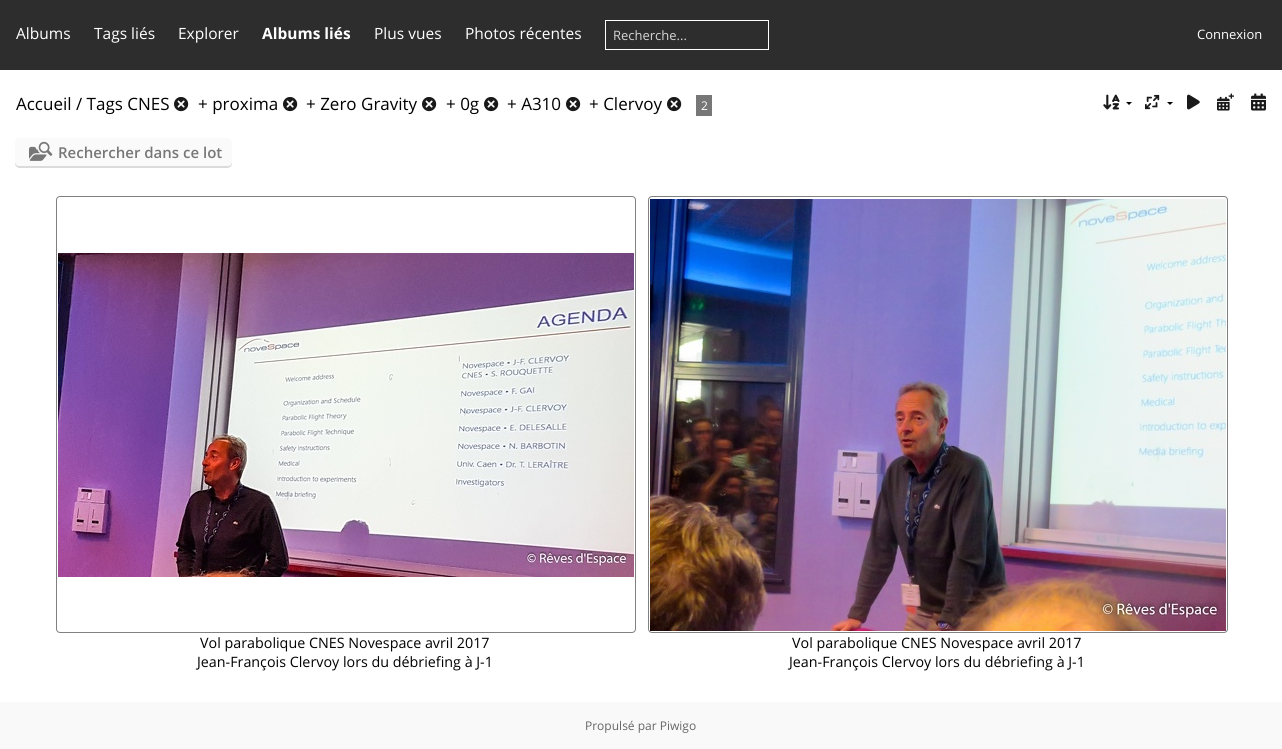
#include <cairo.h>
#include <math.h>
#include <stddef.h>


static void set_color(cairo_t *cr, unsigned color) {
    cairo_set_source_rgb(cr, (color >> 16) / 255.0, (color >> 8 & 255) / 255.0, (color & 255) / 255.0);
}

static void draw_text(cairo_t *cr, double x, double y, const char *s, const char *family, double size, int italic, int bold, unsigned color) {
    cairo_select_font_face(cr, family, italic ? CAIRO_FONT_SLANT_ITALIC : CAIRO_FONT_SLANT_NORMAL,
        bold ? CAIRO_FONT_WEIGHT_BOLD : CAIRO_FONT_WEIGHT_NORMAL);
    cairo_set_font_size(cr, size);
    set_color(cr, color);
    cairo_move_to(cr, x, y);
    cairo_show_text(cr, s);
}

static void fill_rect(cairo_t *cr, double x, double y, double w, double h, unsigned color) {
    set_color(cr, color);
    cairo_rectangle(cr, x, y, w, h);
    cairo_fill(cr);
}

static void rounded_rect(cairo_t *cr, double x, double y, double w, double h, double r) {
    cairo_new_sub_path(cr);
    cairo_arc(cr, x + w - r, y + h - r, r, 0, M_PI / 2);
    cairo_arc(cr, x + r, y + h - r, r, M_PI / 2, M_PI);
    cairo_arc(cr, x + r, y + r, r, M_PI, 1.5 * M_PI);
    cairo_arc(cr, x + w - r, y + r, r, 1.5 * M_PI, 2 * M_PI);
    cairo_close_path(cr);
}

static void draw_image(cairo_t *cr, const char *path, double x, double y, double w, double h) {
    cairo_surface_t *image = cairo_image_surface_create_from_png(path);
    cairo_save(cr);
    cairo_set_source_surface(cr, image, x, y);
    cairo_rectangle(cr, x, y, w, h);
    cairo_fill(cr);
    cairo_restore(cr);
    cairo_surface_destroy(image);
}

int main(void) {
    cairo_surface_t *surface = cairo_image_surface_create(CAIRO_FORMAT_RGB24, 1282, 749);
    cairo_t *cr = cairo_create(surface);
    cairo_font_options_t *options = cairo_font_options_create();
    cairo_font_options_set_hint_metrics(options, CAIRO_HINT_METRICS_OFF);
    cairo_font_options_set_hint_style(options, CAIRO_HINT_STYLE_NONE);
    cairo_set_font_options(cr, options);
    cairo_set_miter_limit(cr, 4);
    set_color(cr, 0xFFFFFF);
    cairo_paint(cr);
    fill_rect(cr, 0, 0, 1282, 70, 0x2D2D2D);
    draw_text(cr, 16, 39, "Albums", "Open Sans", 15.5, 0, 0, 0xFFFFFF);
    draw_text(cr, 94, 39, "Tags liés", "Open Sans", 15.5, 0, 0, 0xFFFFFF);
    draw_text(cr, 178, 39, "Explorer", "Open Sans", 15.5, 0, 0, 0xFFFFFF);
    draw_text(cr, 262, 39, "Albums liés", "Open Sans", 15.5, 0, 1, 0xFFFFFF);
    draw_text(cr, 374, 39, "Plus vues", "Open Sans", 15.5, 0, 0, 0xFFFFFF);
    draw_text(cr, 465, 39, "Photos récentes", "Open Sans", 15.5, 0, 0, 0xFFFFFF);
    cairo_rectangle(cr, 605.5, 20.5, 163, 29);
    cairo_set_line_width(cr, 1);
    cairo_stroke(cr);
    draw_text(cr, 613, 40, "Recherche...", "Open Sans", 13, 0, 0, 0xD6D6D6);
    draw_text(cr, 1197, 39, "Connexion", "Open Sans", 13, 0, 0, 0xFFFFFF);
    draw_text(cr, 16, 110, "Accueil / Tags CNES", "Open Sans", 17, 0, 0, 0x000000);
    draw_image(cr, "assets/img1.png", 174, 97, 15, 15);
    draw_text(cr, 198, 110, "+ proxima", "Open Sans", 17, 0, 0, 0x000000);
    draw_image(cr, "assets/img1.png", 283, 97, 15, 15);
    draw_text(cr, 306, 110, "+ Zero Gravity", "Open Sans", 17, 0, 0, 0x000000);
    draw_image(cr, "assets/img1.png", 422, 97, 15, 15);
    draw_text(cr, 446, 110, "+ 0g", "Open Sans", 17, 0, 0, 0x000000);
    draw_image(cr, "assets/img1.png", 484, 97, 15, 15);
    draw_text(cr, 507, 110, "+ A310", "Open Sans", 17, 0, 0, 0x000000);
    draw_image(cr, "assets/img1.png", 566, 97, 15, 15);
    draw_text(cr, 589, 110, "+ Clervoy", "Open Sans", 17, 0, 0, 0x000000);
    draw_image(cr, "assets/img1.png", 667, 97, 15, 15);
    fill_rect(cr, 696, 95, 16, 21, 0x777777);
    draw_text(cr, 701, 110, "2", "Open Sans", 12, 0, 0, 0xFFFFFF);
    draw_image(cr, "assets/img2.png", 1103, 94, 17, 16);
    set_color(cr, 0x000000);
    cairo_new_path(cr);
    cairo_move_to(cr, 1126, 102);
    cairo_line_to(cr, 1132, 102);
    cairo_line_to(cr, 1129, 105);
    cairo_close_path(cr);
    cairo_move_to(cr, 1167, 102);
    cairo_line_to(cr, 1173, 102);
    cairo_line_to(cr, 1170, 105);
    cairo_close_path(cr);
    cairo_fill(cr);
    draw_image(cr, "assets/img3.png", 1217, 93, 17, 18);
    draw_image(cr, "assets/img4.png", 1251, 93, 15, 18);
    draw_image(cr, "assets/img5.png", 1145, 94, 15, 16);
    draw_image(cr, "assets/img6.png", 1187, 94, 13, 16);
    set_color(cr, 0xDBDBDB);
    cairo_new_path(cr);
    cairo_move_to(cr, 15, 161);
    cairo_line_to(cr, 15, 163);
    cairo_curve_to(cr, 15, 166, 17, 168, 20, 168);
    cairo_line_to(cr, 227, 168);
    cairo_curve_to(cr, 230, 168, 232, 166, 232, 163);
    cairo_line_to(cr, 232, 161);
    cairo_curve_to(cr, 232, 164, 230, 166, 227, 166);
    cairo_line_to(cr, 20, 166);
    cairo_curve_to(cr, 17, 166, 15, 164, 15, 161);
    cairo_close_path(cr);
    cairo_fill(cr);
    set_color(cr, 0xFAFAFA);
    rounded_rect(cr, 15, 138, 217, 28, 5);
    cairo_fill(cr);
    draw_image(cr, "assets/img7.png", 29, 141, 24, 20);
    draw_text(cr, 58, 158, "Rechercher dans ce lot", "Open Sans SemiBold", 15, 0, 0, 0x777777);
    rounded_rect(cr, 56.5, 196.5, 579, 436, 3.5);
    set_color(cr, 0x808080);
    cairo_stroke(cr);
    draw_image(cr, "assets/img8.png", 58, 253, 576, 324);
    draw_text(cr, 200, 648, "Vol parabolique CNES Novespace avril 2017", "Open Sans", 14.3, 0, 0, 0x000000);
    draw_text(cr, 197, 667, "Jean-François Clervoy lors du débriefing à J-1", "Open Sans", 14.3, 0, 0, 0x000000);
    rounded_rect(cr, 648.5, 196.5, 579, 436, 3.5);
    set_color(cr, 0x808080);
    cairo_stroke(cr);
    draw_image(cr, "assets/img9.png", 650, 199, 576, 432);
    draw_text(cr, 792, 648, "Vol parabolique CNES Novespace avril 2017", "Open Sans", 14.3, 0, 0, 0x000000);
    draw_text(cr, 789, 667, "Jean-François Clervoy lors du débriefing à J-1", "Open Sans", 14.3, 0, 0, 0x000000);
    fill_rect(cr, 0, 702, 1282, 47, 0xF9F9F9);
    draw_text(cr, 585, 730, "Propulsé par Piwigo", "Open Sans", 12, 0, 0, 0x666666);
    cairo_surface_write_to_png(surface, "output.png");
    cairo_font_options_destroy(options);
    cairo_destroy(cr);
    cairo_surface_destroy(surface);
    return 0;
}
